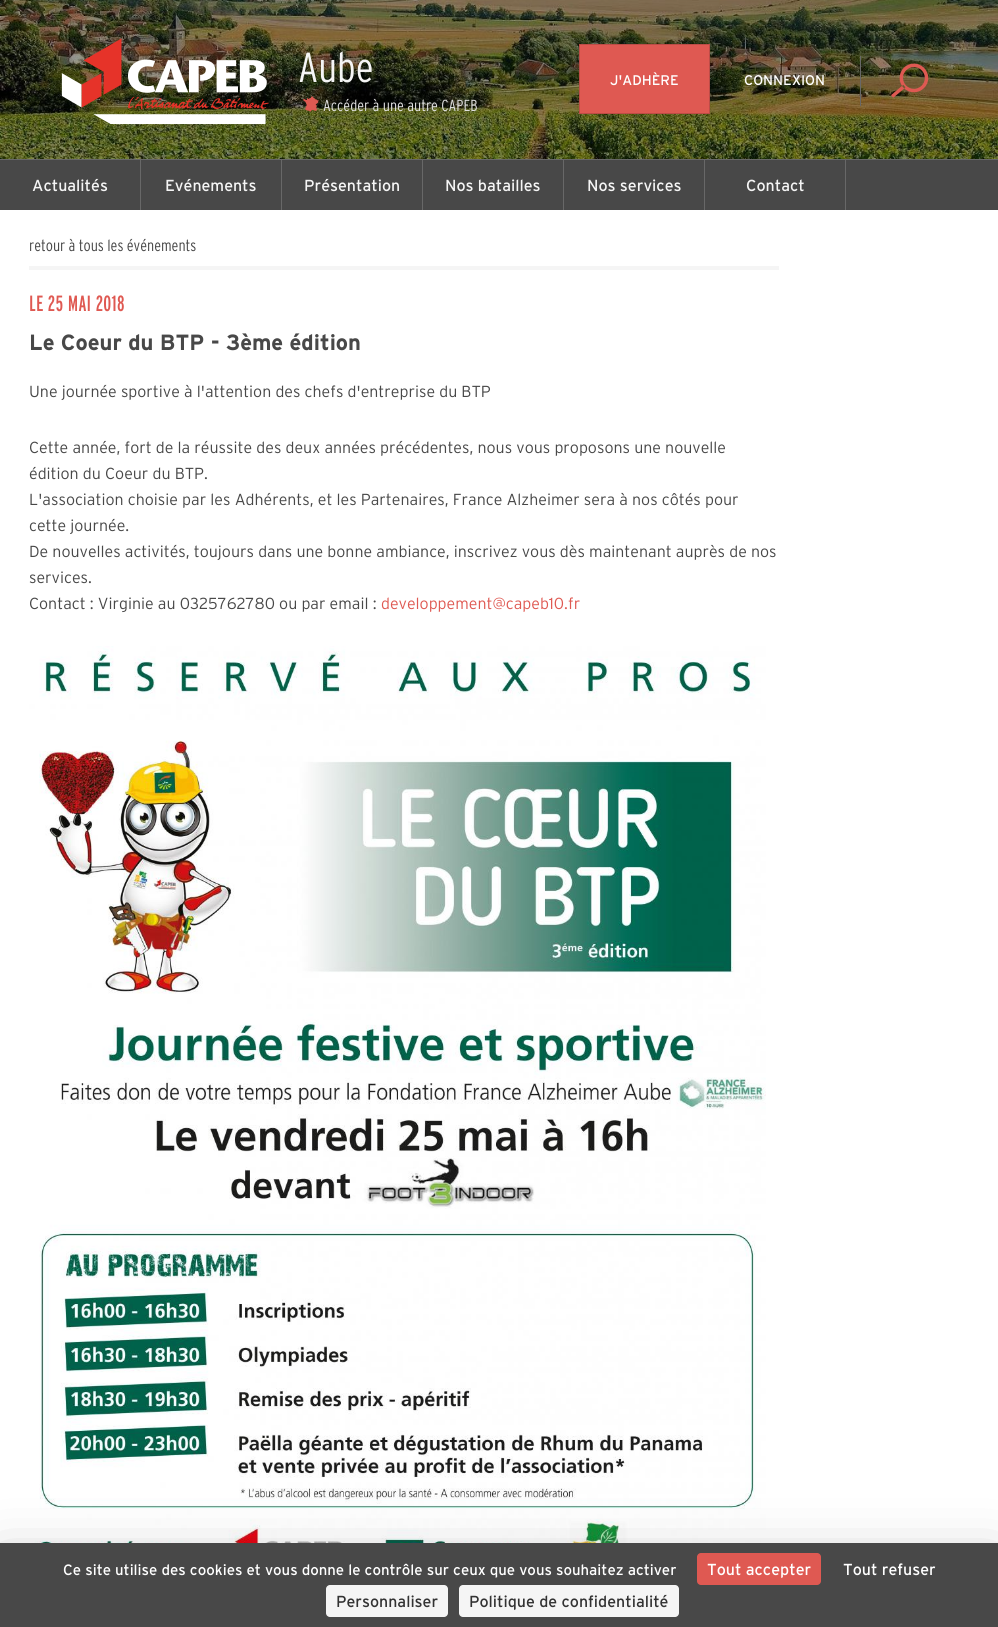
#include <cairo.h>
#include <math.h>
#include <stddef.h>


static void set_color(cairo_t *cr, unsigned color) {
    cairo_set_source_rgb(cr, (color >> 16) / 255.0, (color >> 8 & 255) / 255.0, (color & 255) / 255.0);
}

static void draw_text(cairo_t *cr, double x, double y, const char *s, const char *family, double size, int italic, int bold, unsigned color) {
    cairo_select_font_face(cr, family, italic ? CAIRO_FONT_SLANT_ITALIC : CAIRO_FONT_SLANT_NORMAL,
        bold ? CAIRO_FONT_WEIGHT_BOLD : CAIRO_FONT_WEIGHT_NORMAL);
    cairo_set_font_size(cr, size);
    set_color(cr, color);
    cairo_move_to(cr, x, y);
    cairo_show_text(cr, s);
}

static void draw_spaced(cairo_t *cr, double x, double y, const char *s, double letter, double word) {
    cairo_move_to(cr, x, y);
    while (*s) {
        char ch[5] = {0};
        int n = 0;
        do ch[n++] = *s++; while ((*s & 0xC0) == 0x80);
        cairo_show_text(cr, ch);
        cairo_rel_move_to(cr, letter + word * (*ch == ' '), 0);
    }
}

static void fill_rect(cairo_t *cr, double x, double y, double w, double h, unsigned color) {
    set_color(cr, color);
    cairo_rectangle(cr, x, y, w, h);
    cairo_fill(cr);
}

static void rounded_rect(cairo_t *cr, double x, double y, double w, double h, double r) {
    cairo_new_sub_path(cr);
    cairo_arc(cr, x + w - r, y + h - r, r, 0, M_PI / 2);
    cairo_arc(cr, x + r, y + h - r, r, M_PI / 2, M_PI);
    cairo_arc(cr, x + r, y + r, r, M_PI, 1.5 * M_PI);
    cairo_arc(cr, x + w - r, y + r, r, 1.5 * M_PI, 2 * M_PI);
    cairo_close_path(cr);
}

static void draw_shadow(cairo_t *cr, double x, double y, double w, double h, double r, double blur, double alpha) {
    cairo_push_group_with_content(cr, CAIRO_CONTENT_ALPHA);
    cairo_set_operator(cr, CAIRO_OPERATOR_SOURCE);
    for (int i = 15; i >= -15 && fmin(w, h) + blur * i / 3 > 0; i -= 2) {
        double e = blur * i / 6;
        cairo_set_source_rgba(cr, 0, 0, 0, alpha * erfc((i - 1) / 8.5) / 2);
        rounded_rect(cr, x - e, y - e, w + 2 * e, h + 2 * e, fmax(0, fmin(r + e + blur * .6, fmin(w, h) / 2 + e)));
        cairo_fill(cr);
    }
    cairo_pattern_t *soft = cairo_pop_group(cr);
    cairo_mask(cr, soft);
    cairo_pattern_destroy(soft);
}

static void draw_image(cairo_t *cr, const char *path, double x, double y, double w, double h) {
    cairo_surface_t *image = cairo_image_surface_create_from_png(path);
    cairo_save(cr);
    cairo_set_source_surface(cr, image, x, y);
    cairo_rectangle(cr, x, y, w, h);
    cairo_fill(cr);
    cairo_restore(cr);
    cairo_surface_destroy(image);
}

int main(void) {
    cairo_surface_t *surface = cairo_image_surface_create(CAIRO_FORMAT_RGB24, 998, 1627);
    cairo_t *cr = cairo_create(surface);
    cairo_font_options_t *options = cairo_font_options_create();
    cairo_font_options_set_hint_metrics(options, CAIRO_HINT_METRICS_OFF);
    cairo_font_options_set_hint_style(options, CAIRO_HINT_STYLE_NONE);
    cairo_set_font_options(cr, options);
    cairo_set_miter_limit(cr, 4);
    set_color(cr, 0xFFFFFF);
    cairo_paint(cr);
    draw_image(cr, "assets/img1.png", 0, 0, 998, 159);
    fill_rect(cr, 0, 159, 998, 1, 0x686868);
    draw_image(cr, "assets/img2.png", 61, 38, 208, 87);
    draw_text(cr, 298, 82, "Aube", "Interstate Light", 42, 0, 0, 0xF5F5F5);
    draw_image(cr, "assets/img3.png", 303, 96, 16, 16);
    draw_text(cr, 323, 111, "Accéder à une autre CAPEB", "Interstate Light", 16, 0, 0, 0xE0E0E0);
    set_color(cr, 0xDF5952);
    cairo_rectangle(cr, 579.5, 44.5, 130, 69);
    cairo_fill_preserve(cr);
    set_color(cr, 0xBC4C47);
    cairo_set_line_width(cr, 1);
    cairo_stroke(cr);
    draw_text(cr, 610, 85, "J'ADHÈRE", "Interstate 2", 14, 0, 0, 0xFFFFFF);
    draw_text(cr, 744, 85, "CONNEXION", "Interstate 2", 14, 0, 0, 0xFFFFFF);
    fill_rect(cr, 860, 56, 1, 50, 0x686868);
    draw_image(cr, "assets/img4.png", 891, 63, 38, 35);
    fill_rect(cr, 0, 160, 998, 50, 0x484848);
    fill_rect(cr, 140, 160, 1, 50, 0x686868);
    draw_text(cr, 32, 191, "Actualités", "Interstate 2", 16, 0, 0, 0xF5F5F5);
    fill_rect(cr, 281, 160, 1, 50, 0x686868);
    draw_text(cr, 165, 191, "Evénements", "Interstate 2", 16, 0, 0, 0xF5F5F5);
    fill_rect(cr, 422, 160, 1, 50, 0x686868);
    draw_text(cr, 304, 191, "Présentation", "Interstate 2", 16, 0, 0, 0xF5F5F5);
    fill_rect(cr, 563, 160, 1, 50, 0x686868);
    draw_text(cr, 445, 191, "Nos batailles", "Interstate 2", 16, 0, 0, 0xF5F5F5);
    fill_rect(cr, 704, 160, 1, 50, 0x686868);
    draw_text(cr, 587, 191, "Nos services", "Interstate 2", 16, 0, 0, 0xF5F5F5);
    fill_rect(cr, 845, 160, 1, 50, 0x686868);
    draw_text(cr, 746, 191, "Contact", "Interstate 2", 16, 0, 0, 0xF5F5F5);
    draw_text(cr, 29, 251, "retour à tous les événements", "Interstate Light", 16, 0, 0, 0x484848);
    fill_rect(cr, 29, 266, 750, 4, 0xF5F5F5);
    cairo_select_font_face(cr, "Interstate", CAIRO_FONT_SLANT_NORMAL, CAIRO_FONT_WEIGHT_NORMAL);
    cairo_set_font_size(cr, 22);
    set_color(cr, 0xDF5952);
    draw_spaced(cr, 29, 311, "LE 25 MAI 2018", 0.25, 0);
    draw_text(cr, 29, 350, "Le Coeur du BTP - 3ème édition", "Interstate", 22, 0, 1, 0x484848);
    draw_text(cr, 29, 397, "Une journée sportive à l'attention des chefs d'entreprise du BTP", "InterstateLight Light", 16, 0, 0, 0x484848);
    draw_text(cr, 29, 453, "Cette année, fort de la réussite des deux années précédentes, nous vous proposons une nouvelle", "InterstateLight Light", 16, 0, 0, 0x484848);
    draw_text(cr, 29, 479, "édition du Coeur du BTP.", "InterstateLight Light", 16, 0, 0, 0x484848);
    draw_text(cr, 29, 505, "L'association choisie par les Adhérents, et les Partenaires, France Alzheimer sera à nos côtés pour", "InterstateLight Light", 16, 0, 0, 0x484848);
    draw_text(cr, 29, 531, "cette journée.", "InterstateLight Light", 16, 0, 0, 0x484848);
    draw_text(cr, 29, 557, "De nouvelles activités, toujours dans une bonne ambiance, inscrivez vous dès maintenant auprès de nos", "InterstateLight Light", 16, 0, 0, 0x484848);
    draw_text(cr, 29, 583, "services.", "InterstateLight Light", 16, 0, 0, 0x484848);
    draw_text(cr, 29, 609, "Contact : Virginie au 0325762780 ou par email :", "InterstateLight Light", 16, 0, 0, 0x484848);
    draw_text(cr, 381, 609, "developpement@capeb10.fr", "InterstateLight Light", 16, 0, 0, 0xDF5952);
    draw_image(cr, "assets/img5.png", 29, 646, 737, 897);
    set_color(cr, 0x000000);
    draw_shadow(cr, 0, 1563, 998, 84, 0, 30, 0.25);
    fill_rect(cr, 0, 1543, 998, 84, 0x484848);
    draw_text(cr, 63, 1575, "Ce site utilise des cookies et vous donne le contrôle sur ceux que vous souhaitez activer", "Interstate 2", 15, 0, 0, 0xFFFFFF);
    set_color(cr, 0xDF5952);
    rounded_rect(cr, 697, 1553, 124, 32, 4);
    cairo_fill(cr);
    draw_text(cr, 707, 1575, "Tout accepter", "Interstate 2", 16, 0, 0, 0xFFFFFF);
    draw_text(cr, 843, 1575, "Tout refuser", "Interstate 2", 16, 0, 0, 0xFFFFFF);
    set_color(cr, 0xF5F5F5);
    rounded_rect(cr, 326, 1585, 122, 32, 4);
    cairo_fill(cr);
    draw_text(cr, 336, 1607, "Personnaliser", "Interstate 2", 16, 0, 0, 0x333333);
    set_color(cr, 0xF5F5F5);
    rounded_rect(cr, 459, 1585, 220, 32, 4);
    cairo_fill(cr);
    draw_text(cr, 469, 1607, "Politique de confidentialité", "Interstate 2", 16, 0, 0, 0x333333);
    cairo_surface_write_to_png(surface, "output.png");
    cairo_font_options_destroy(options);
    cairo_destroy(cr);
    cairo_surface_destroy(surface);
    return 0;
}
